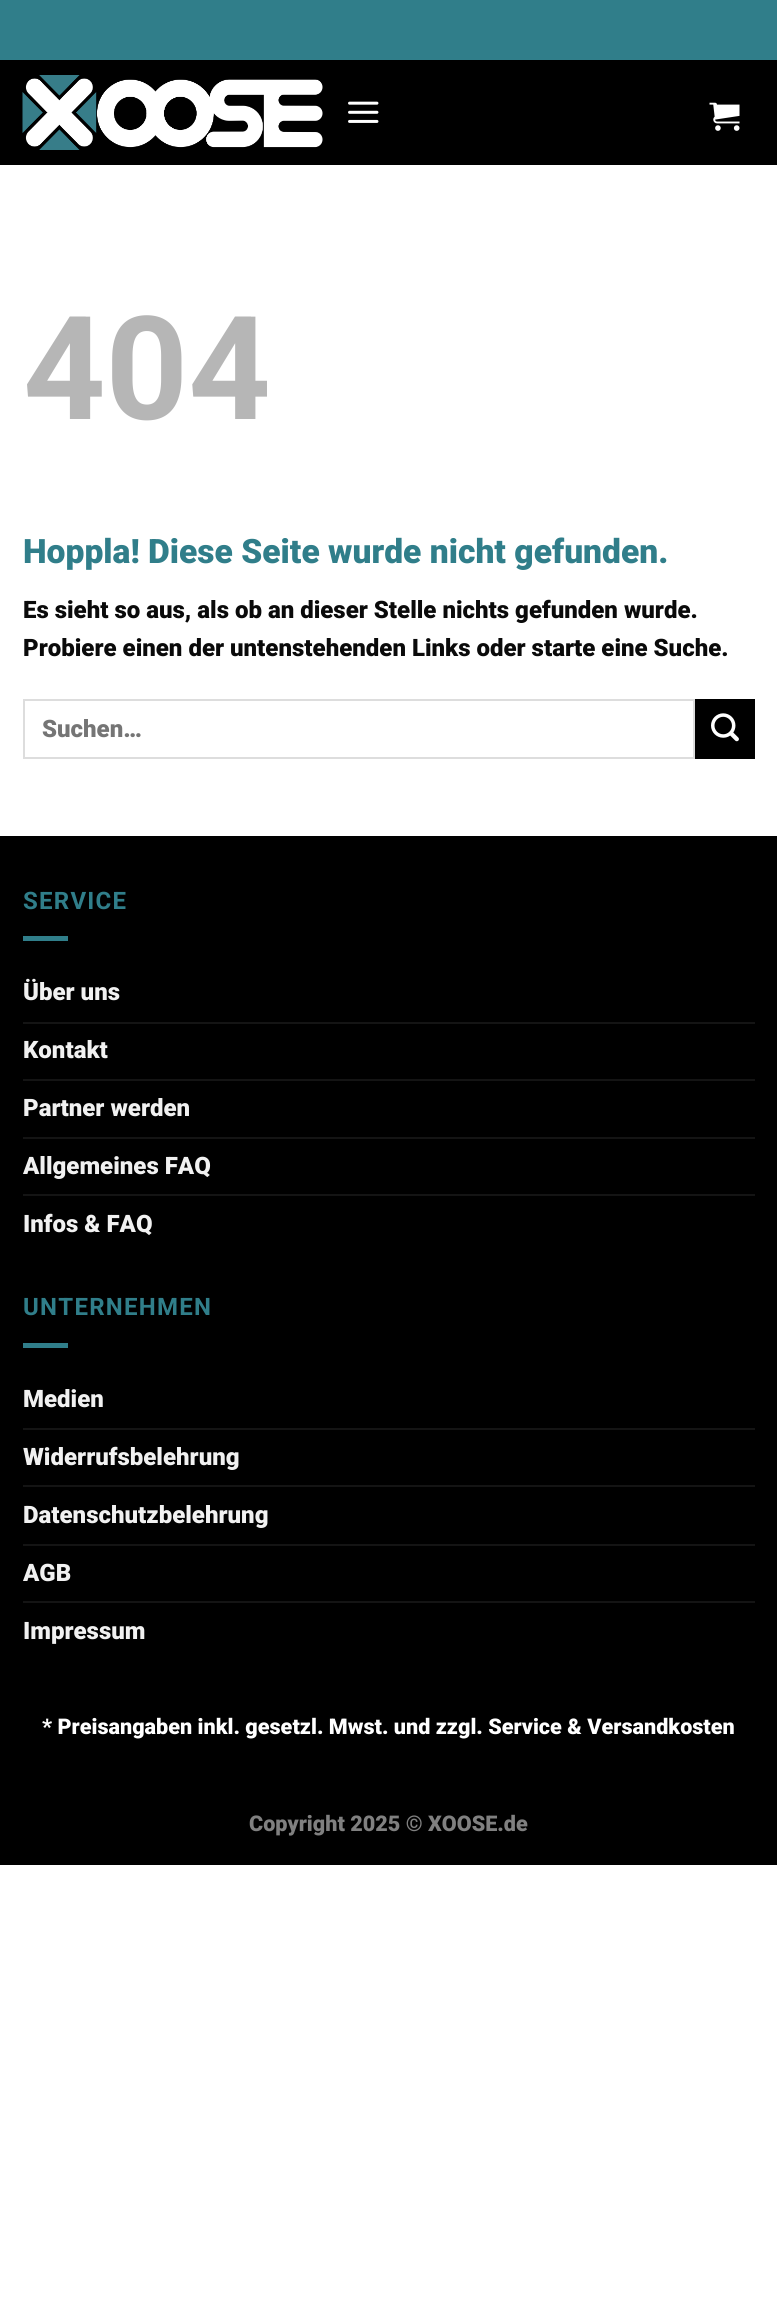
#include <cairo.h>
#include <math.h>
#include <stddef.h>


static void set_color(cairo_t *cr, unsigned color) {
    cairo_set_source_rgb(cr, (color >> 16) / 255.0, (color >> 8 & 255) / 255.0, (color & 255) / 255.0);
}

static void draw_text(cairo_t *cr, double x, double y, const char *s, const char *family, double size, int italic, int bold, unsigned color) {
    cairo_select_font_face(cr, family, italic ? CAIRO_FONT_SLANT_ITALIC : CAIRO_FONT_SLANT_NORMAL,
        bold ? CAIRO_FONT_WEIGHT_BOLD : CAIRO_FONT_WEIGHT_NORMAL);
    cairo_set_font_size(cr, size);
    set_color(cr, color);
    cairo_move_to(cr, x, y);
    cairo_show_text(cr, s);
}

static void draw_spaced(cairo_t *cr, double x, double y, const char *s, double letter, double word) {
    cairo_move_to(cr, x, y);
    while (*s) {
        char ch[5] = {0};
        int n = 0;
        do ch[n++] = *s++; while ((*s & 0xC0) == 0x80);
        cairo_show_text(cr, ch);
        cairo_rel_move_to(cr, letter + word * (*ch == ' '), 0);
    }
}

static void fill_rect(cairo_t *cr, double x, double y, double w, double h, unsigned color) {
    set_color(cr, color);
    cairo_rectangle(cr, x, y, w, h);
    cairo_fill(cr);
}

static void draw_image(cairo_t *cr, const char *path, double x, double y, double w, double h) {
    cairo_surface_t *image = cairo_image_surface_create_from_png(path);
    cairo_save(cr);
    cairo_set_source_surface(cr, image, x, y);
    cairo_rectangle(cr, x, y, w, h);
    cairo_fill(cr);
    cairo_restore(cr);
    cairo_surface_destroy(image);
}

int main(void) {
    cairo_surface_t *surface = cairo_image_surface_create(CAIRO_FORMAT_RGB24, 777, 2313);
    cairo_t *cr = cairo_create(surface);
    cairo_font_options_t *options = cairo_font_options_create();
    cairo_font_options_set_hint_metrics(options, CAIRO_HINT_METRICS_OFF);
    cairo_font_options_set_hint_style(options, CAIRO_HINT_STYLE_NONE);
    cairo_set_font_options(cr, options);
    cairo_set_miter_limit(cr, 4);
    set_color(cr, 0xFFFFFF);
    cairo_paint(cr);
    fill_rect(cr, 0, 0, 777, 60, 0x307E8A);
    fill_rect(cr, 0, 60, 777, 105, 0x000000);
    draw_image(cr, "assets/img1.png", 22, 75, 301, 75);
    draw_image(cr, "assets/img2.png", 348, 101, 31, 22);
    draw_image(cr, "assets/img3.png", 709, 102, 31, 29);
    draw_text(cr, 23, 419, "404", "Roboto", 144, 0, 1, 0xB6B6B6);
    draw_text(cr, 23, 563, "Hoppla! Diese Seite wurde nicht gefunden.", "Roboto Black", 33.6, 0, 0, 0x307E8A);
    draw_text(cr, 23, 618, "Es sieht so aus, als ob an dieser Stelle nichts gefunden wurde.", "Roboto Black", 24, 0, 0, 0x0A0A0A);
    draw_text(cr, 23, 656, "Probiere einen der untenstehenden Links oder starte eine Suche.", "Roboto Black", 24, 0, 0, 0x0A0A0A);
    cairo_rectangle(cr, 24, 700, 670, 58);
    set_color(cr, 0xDDDDDD);
    cairo_stroke(cr);
    draw_text(cr, 42, 737, "Suchen…", "Roboto Black", 24, 0, 0, 0x757575);
    fill_rect(cr, 695, 699, 60, 60, 0x000000);
    draw_image(cr, "assets/img4.png", 711, 713, 28, 29);
    fill_rect(cr, 0, 836, 777, 1029, 0x000000);
    cairo_select_font_face(cr, "Roboto", CAIRO_FONT_SLANT_NORMAL, CAIRO_FONT_WEIGHT_BOLD);
    set_color(cr, 0x307E8A);
    draw_spaced(cr, 23, 909, "SERVICE", 1.25, 0);
    fill_rect(cr, 23, 936, 45, 5, 0x307E8A);
    draw_text(cr, 23, 1000, "Über uns", "Roboto Black", 24, 0, 0, 0xF1F1F1);
    fill_rect(cr, 23, 1022, 732, 2, 0x141414);
    draw_text(cr, 23, 1058, "Kontakt", "Roboto Black", 24, 0, 0, 0xF1F1F1);
    fill_rect(cr, 23, 1079, 732, 2, 0x141414);
    draw_text(cr, 23, 1116, "Partner werden", "Roboto Black", 24, 0, 0, 0xF1F1F1);
    fill_rect(cr, 23, 1137, 732, 2, 0x141414);
    draw_text(cr, 23, 1174, "Allgemeines FAQ", "Roboto Black", 24, 0, 0, 0xF1F1F1);
    fill_rect(cr, 23, 1194, 732, 2, 0x141414);
    draw_text(cr, 23, 1232, "Infos & FAQ", "Roboto Black", 24, 0, 0, 0xF1F1F1);
    cairo_select_font_face(cr, "Roboto", CAIRO_FONT_SLANT_NORMAL, CAIRO_FONT_WEIGHT_BOLD);
    set_color(cr, 0x307E8A);
    draw_spaced(cr, 23, 1315, "UNTERNEHMEN", 1.25, 0);
    fill_rect(cr, 23, 1343, 45, 5, 0x307E8A);
    draw_text(cr, 23, 1407, "Medien", "Roboto Black", 24, 0, 0, 0xF1F1F1);
    fill_rect(cr, 23, 1428, 732, 2, 0x141414);
    draw_text(cr, 23, 1465, "Widerrufsbelehrung", "Roboto Black", 24, 0, 0, 0xF1F1F1);
    fill_rect(cr, 23, 1485, 732, 2, 0x141414);
    draw_text(cr, 23, 1523, "Datenschutzbelehrung", "Roboto Black", 24, 0, 0, 0xF1F1F1);
    fill_rect(cr, 23, 1544, 732, 2, 0x141414);
    draw_text(cr, 23, 1581, "AGB", "Roboto Black", 24, 0, 0, 0xF1F1F1);
    fill_rect(cr, 23, 1601, 732, 2, 0x141414);
    draw_text(cr, 23, 1639, "Impressum", "Roboto Black", 24, 0, 0, 0xF1F1F1);
    draw_text(cr, 42, 1734, "* Preisangaben inkl. gesetzl. Mwst. und zzgl. Service & Versandkosten", "Roboto Black", 21.6, 0, 0, 0xFFFFFF);
    draw_text(cr, 249, 1831, "Copyright 2025 © XOOSE.de", "Roboto Black", 21.6, 0, 0, 0x808080);
    cairo_surface_write_to_png(surface, "output.png");
    cairo_font_options_destroy(options);
    cairo_destroy(cr);
    cairo_surface_destroy(surface);
    return 0;
}
